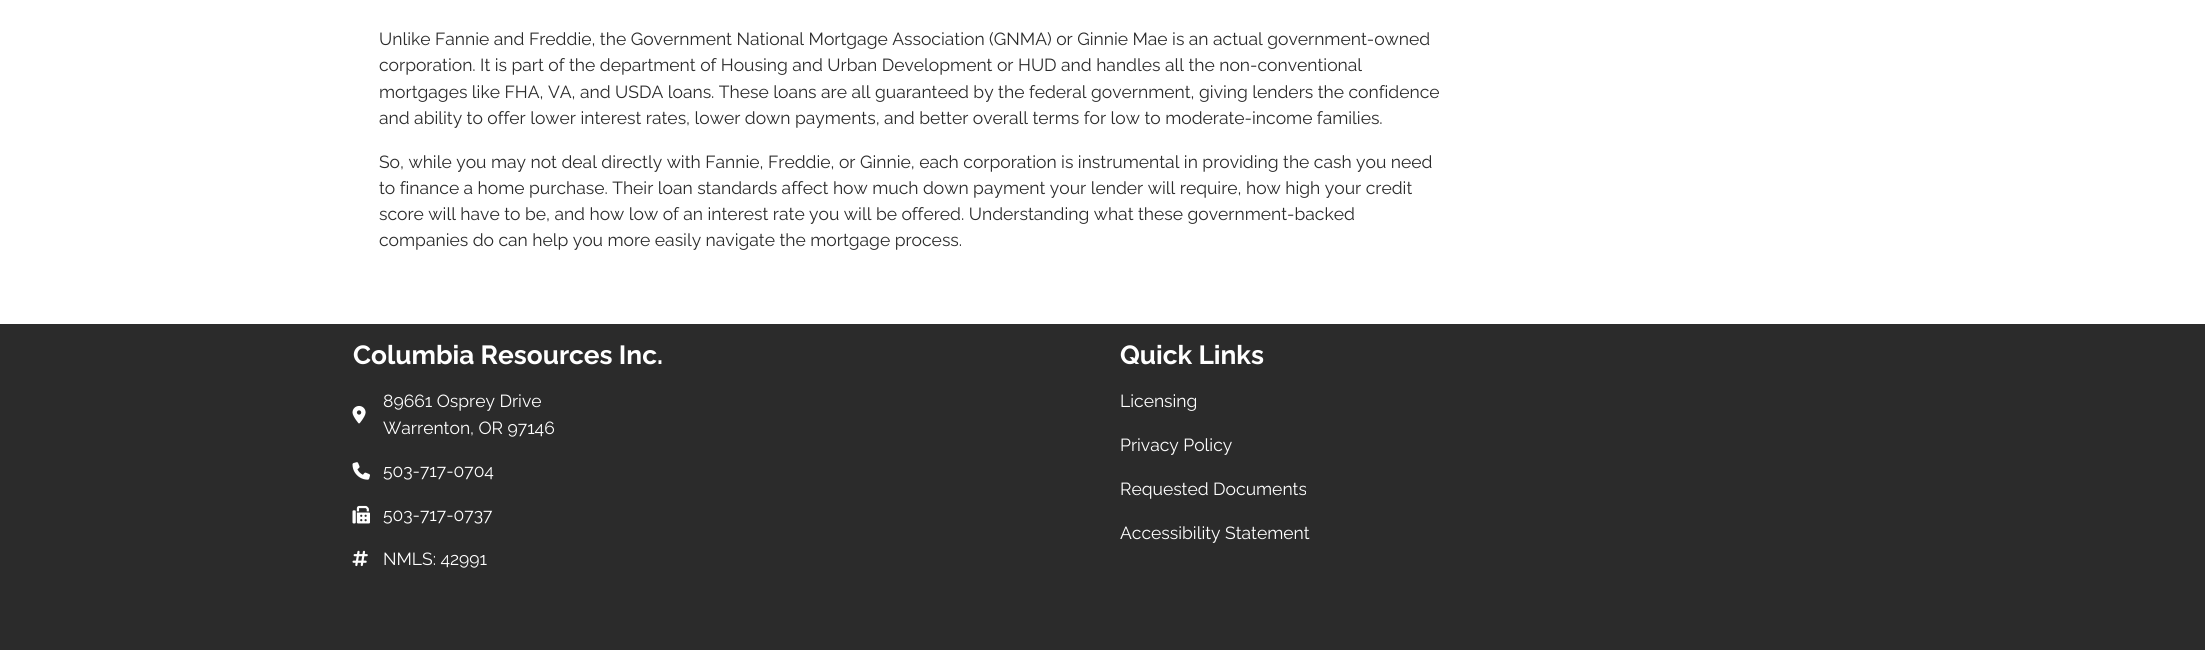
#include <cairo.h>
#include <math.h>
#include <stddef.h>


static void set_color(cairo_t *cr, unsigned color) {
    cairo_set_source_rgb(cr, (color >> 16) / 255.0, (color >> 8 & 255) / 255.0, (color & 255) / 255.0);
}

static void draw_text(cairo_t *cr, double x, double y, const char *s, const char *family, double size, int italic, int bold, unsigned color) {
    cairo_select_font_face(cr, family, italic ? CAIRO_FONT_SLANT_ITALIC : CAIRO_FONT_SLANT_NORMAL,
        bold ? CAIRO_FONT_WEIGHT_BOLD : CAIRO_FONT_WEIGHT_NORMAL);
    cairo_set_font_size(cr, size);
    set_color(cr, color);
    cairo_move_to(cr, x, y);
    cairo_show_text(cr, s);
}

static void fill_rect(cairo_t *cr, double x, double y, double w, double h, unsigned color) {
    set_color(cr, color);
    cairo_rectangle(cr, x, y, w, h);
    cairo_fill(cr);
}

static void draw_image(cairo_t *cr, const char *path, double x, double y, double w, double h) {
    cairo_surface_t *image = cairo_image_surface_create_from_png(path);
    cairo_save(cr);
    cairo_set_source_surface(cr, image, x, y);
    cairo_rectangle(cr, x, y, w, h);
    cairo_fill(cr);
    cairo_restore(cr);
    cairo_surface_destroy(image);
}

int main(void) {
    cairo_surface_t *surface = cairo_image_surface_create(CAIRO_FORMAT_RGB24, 2205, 650);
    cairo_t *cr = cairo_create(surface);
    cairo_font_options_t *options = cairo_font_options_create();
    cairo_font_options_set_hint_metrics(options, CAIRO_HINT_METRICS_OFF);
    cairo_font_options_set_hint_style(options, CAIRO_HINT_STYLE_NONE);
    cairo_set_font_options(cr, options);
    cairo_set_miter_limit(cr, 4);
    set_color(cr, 0xFFFFFF);
    cairo_paint(cr);
    draw_text(cr, 379, 45, "Unlike Fannie and Freddie, the Government National Mortgage Association (GNMA) or Ginnie Mae is an actual government-owned", "Raleway", 17.5, 0, 0, 0x2B2B2B);
    draw_text(cr, 379, 71, "corporation. It is part of the department of Housing and Urban Development or HUD and handles all the non-conventional", "Raleway", 17.5, 0, 0, 0x2B2B2B);
    draw_text(cr, 379, 98, "mortgages like FHA, VA, and USDA loans. These loans are all guaranteed by the federal government, giving lenders the confidence", "Raleway", 17.5, 0, 0, 0x2B2B2B);
    draw_text(cr, 379, 124, "and ability to offer lower interest rates, lower down payments, and better overall terms for low to moderate-income families.", "Raleway", 17.5, 0, 0, 0x2B2B2B);
    draw_text(cr, 379, 168, "So, while you may not deal directly with Fannie, Freddie, or Ginnie, each corporation is instrumental in providing the cash you need", "Raleway", 17.5, 0, 0, 0x2B2B2B);
    draw_text(cr, 379, 194, "to finance a home purchase. Their loan standards affect how much down payment your lender will require, how high your credit", "Raleway", 17.5, 0, 0, 0x2B2B2B);
    draw_text(cr, 379, 220, "score will have to be, and how low of an interest rate you will be offered. Understanding what these government-backed", "Raleway", 17.5, 0, 0, 0x2B2B2B);
    draw_text(cr, 379, 246, "companies do can help you more easily navigate the mortgage process.", "Raleway", 17.5, 0, 0, 0x2B2B2B);
    fill_rect(cr, 0, 324, 2205, 326, 0x2B2B2B);
    draw_text(cr, 353, 364, "Columbia Resources Inc.", "Raleway", 26.25, 0, 1, 0xFFFFFF);
    draw_image(cr, "assets/img1.png", 352, 405, 14, 19);
    draw_text(cr, 383, 407, "89661 Osprey Drive", "Raleway", 17.5, 0, 0, 0xFFFFFF);
    draw_text(cr, 383, 434, "Warrenton, OR 97146", "Raleway", 17.5, 0, 0, 0xFFFFFF);
    draw_image(cr, "assets/img2.png", 352, 462, 18, 18);
    draw_text(cr, 383, 477, "503-717-0704", "Raleway", 17.5, 0, 0, 0xFFFFFF);
    draw_image(cr, "assets/img3.png", 352, 505, 18, 19);
    draw_text(cr, 383, 521, "503-717-0737", "Raleway", 17.5, 0, 0, 0xFFFFFF);
    draw_image(cr, "assets/img4.png", 352, 550, 16, 17);
    draw_text(cr, 383, 565, "NMLS: 42991", "Raleway", 17.5, 0, 0, 0xFFFFFF);
    draw_text(cr, 1120, 364, "Quick Links", "Raleway", 26.25, 0, 1, 0xFFFFFF);
    draw_text(cr, 1120, 407, "Licensing", "Raleway", 17.5, 0, 0, 0xFFFFFF);
    draw_text(cr, 1120, 451, "Privacy Policy", "Raleway", 17.5, 0, 0, 0xFFFFFF);
    draw_text(cr, 1120, 495, "Requested Documents", "Raleway", 17.5, 0, 0, 0xFFFFFF);
    draw_text(cr, 1120, 539, "Accessibility Statement", "Raleway", 17.5, 0, 0, 0xFFFFFF);
    cairo_surface_write_to_png(surface, "output.png");
    cairo_font_options_destroy(options);
    cairo_destroy(cr);
    cairo_surface_destroy(surface);
    return 0;
}
